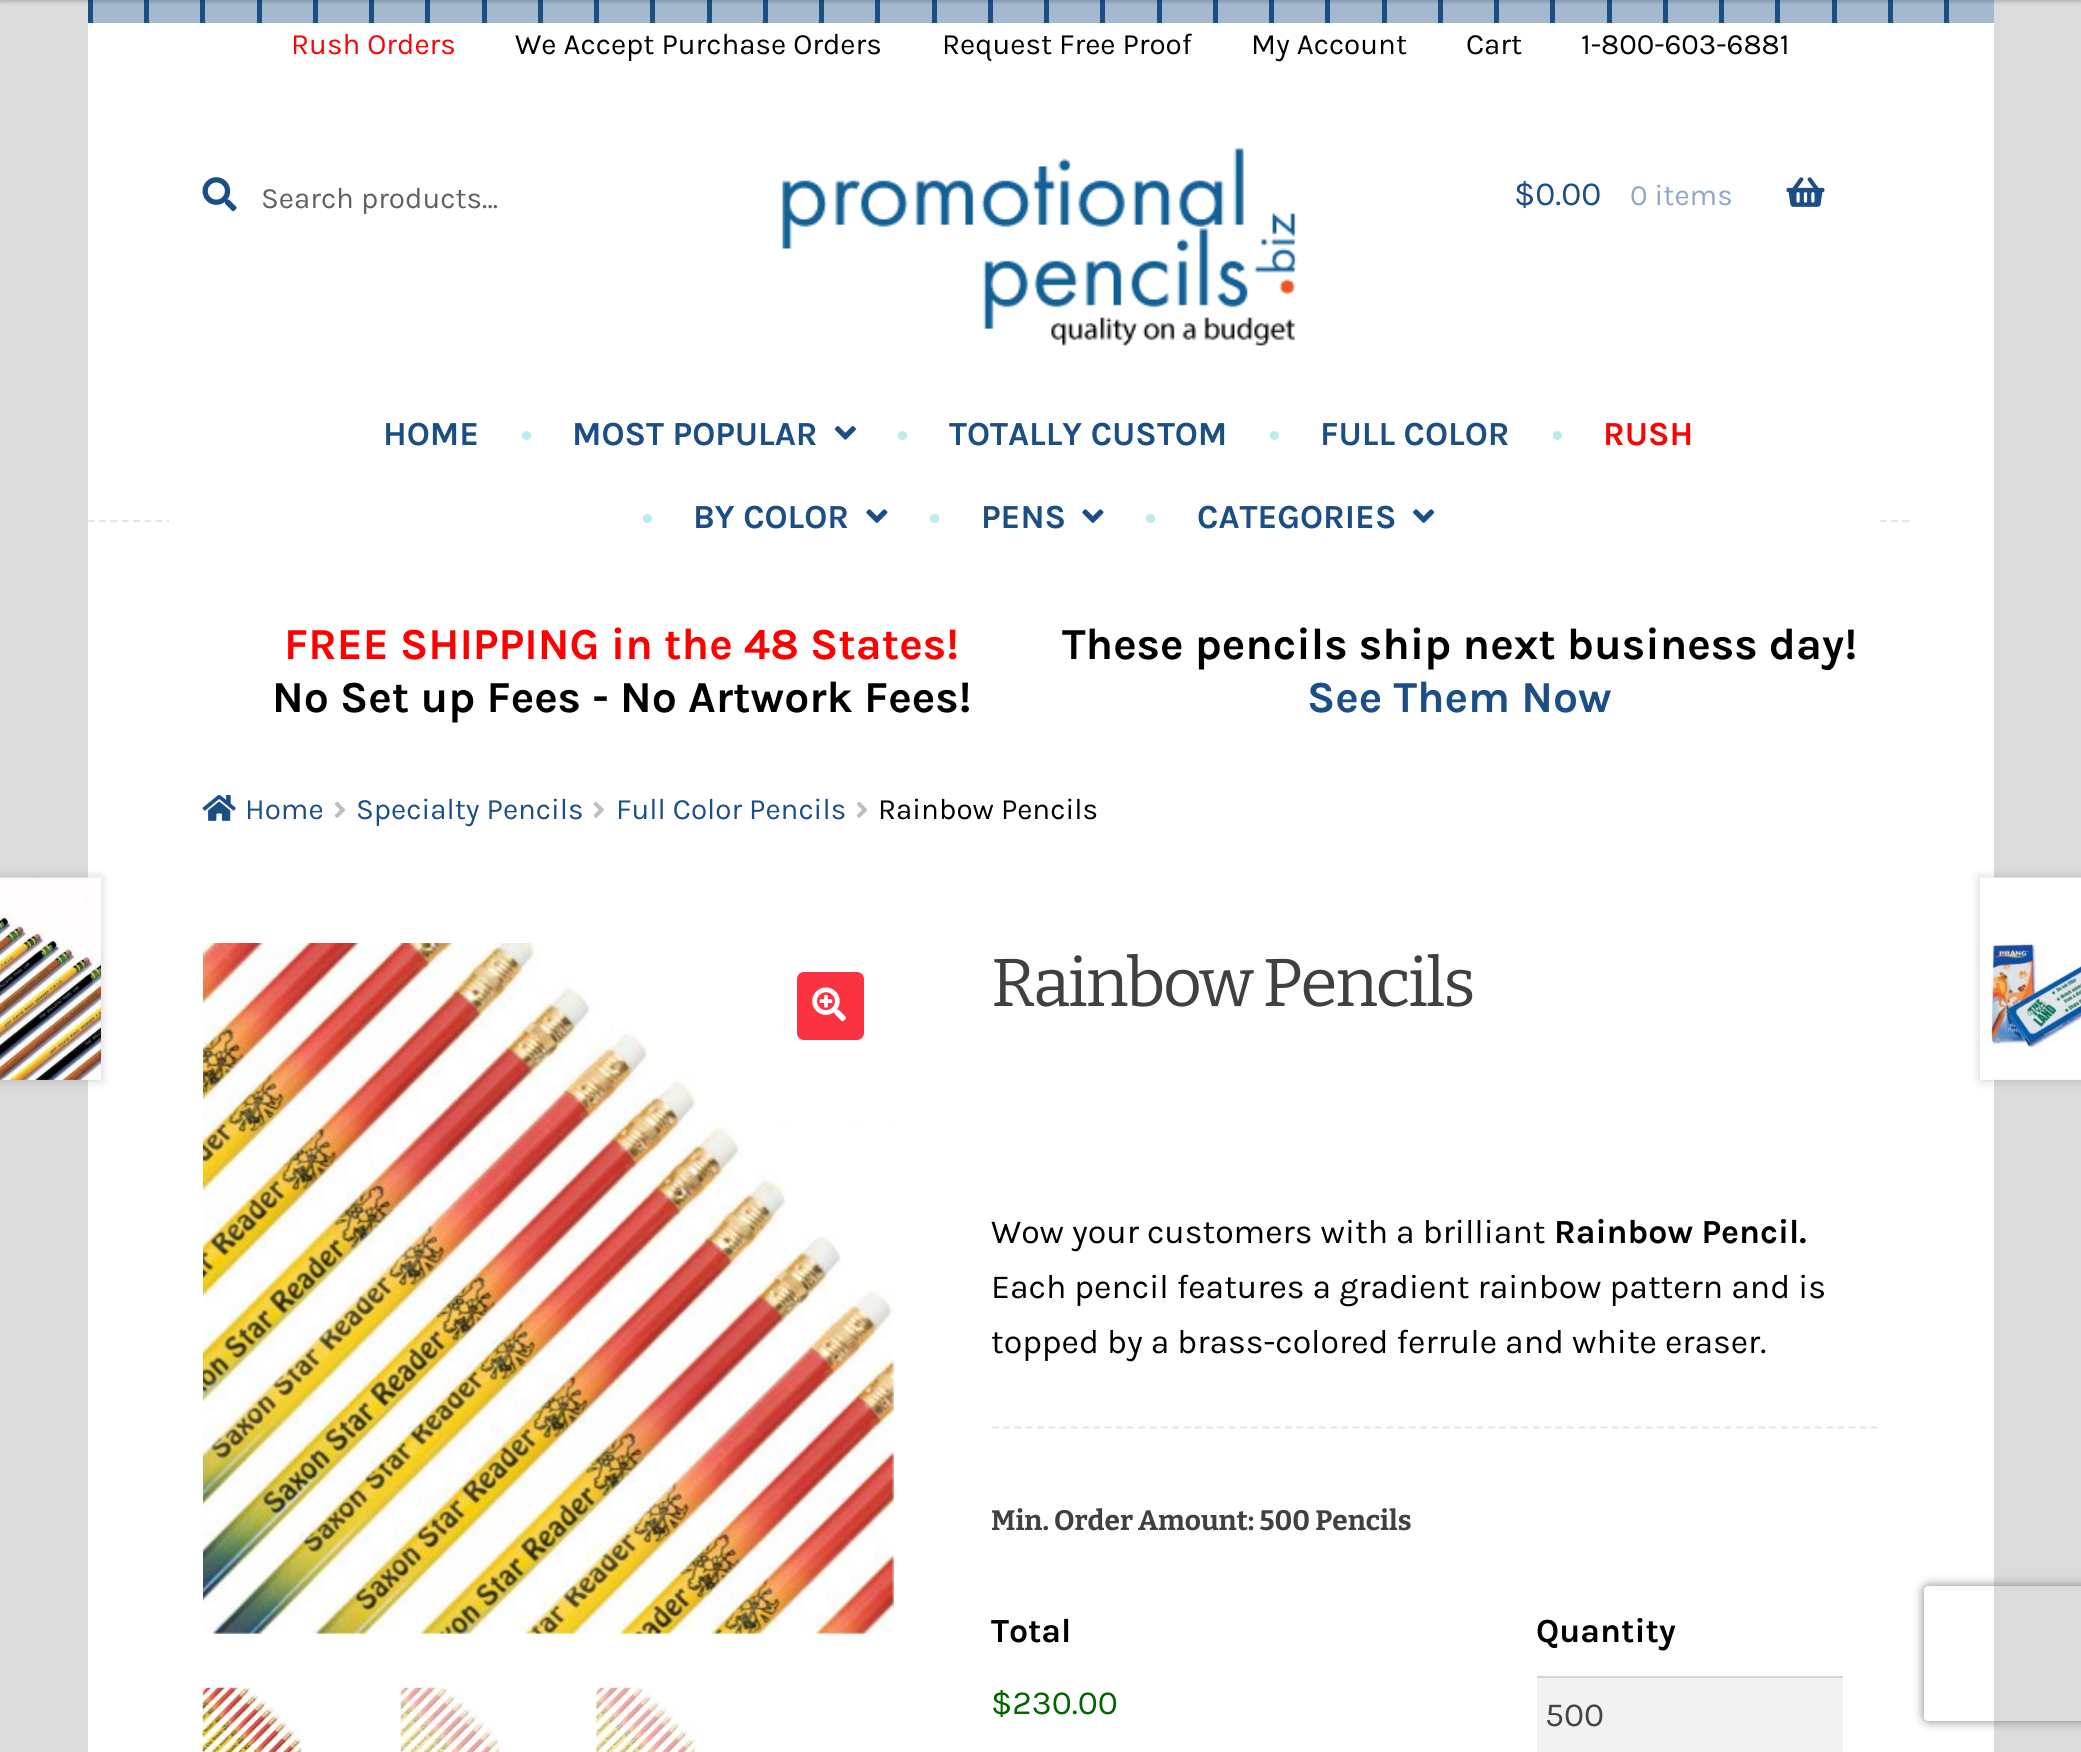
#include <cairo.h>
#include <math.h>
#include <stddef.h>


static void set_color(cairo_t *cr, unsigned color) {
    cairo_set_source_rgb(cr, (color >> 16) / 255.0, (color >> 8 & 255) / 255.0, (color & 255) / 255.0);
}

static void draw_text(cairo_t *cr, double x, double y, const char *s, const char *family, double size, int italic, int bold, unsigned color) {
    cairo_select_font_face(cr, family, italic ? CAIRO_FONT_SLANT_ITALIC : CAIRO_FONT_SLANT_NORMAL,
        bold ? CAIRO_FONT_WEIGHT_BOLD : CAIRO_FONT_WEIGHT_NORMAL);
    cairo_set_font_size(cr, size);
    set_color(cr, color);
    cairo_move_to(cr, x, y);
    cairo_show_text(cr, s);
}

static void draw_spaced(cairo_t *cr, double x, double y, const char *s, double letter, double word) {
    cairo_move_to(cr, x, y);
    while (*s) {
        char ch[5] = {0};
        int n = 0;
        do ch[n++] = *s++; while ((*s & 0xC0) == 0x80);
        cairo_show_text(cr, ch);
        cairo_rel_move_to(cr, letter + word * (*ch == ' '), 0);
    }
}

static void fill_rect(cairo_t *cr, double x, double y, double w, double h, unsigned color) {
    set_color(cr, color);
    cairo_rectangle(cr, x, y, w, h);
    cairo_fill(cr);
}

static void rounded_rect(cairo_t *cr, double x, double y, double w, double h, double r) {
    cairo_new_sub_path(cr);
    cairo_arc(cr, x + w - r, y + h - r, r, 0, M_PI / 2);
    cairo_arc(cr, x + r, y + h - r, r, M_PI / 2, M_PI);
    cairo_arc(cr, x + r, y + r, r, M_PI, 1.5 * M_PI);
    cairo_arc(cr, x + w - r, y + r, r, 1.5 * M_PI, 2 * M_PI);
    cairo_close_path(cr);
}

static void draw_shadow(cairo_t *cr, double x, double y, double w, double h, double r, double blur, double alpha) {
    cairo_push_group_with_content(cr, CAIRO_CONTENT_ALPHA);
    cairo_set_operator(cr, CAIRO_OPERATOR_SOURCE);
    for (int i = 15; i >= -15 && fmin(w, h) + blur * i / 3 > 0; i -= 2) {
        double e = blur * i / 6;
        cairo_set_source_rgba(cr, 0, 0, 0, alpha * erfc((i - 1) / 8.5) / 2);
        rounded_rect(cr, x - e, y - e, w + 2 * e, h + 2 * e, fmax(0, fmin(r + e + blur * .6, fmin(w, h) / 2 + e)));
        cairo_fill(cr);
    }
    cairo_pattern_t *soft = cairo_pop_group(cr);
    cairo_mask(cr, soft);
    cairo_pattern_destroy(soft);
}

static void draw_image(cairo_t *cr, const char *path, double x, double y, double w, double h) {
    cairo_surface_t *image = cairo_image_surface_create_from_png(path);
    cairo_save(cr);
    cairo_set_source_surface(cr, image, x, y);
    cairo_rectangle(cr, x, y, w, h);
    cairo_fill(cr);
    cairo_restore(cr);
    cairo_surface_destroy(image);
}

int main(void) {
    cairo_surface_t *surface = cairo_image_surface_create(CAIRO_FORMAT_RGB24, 2081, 1752);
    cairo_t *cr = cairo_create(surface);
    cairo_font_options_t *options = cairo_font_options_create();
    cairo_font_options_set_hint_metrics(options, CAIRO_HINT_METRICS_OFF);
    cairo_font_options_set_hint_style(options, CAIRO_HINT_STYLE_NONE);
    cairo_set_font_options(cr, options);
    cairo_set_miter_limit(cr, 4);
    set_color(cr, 0xDBDBDB);
    cairo_paint(cr);
    fill_rect(cr, 93, 0, 1901, 23, 0xA4B8CF);
    draw_image(cr, "assets/img1.png", 88, 0, 1861, 23);
    set_color(cr, 0x000000);
    draw_shadow(cr, 0, -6, 2081, 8, 0, 2, 0.2);
    fill_rect(cr, 88, 23, 1906, 555, 0xFFFFFF);
    draw_text(cr, 291, 54, "Rush Orders", "Karla", 29.5, 0, 0, 0xF90404);
    draw_text(cr, 515, 54, "We Accept Purchase Orders", "Karla", 29.5, 0, 0, 0x000000);
    draw_text(cr, 942, 54, "Request Free Proof", "Karla", 29.5, 0, 0, 0x000000);
    draw_text(cr, 1251, 54, "My Account", "Karla", 29.5, 0, 0, 0x000000);
    draw_text(cr, 1466, 54, "Cart", "Karla", 29.5, 0, 0, 0x000000);
    draw_text(cr, 1581, 54, "1-800-603-6881", "Karla", 29.5, 0, 0, 0x000000);
    draw_image(cr, "assets/img2.png", 202, 177, 35, 35);
    cairo_save(cr);
    cairo_rectangle(cr, 261, 180, 302, 34);
    cairo_clip(cr);
    draw_text(cr, 261, 208, "Search products…", "Karla", 29.5, 0, 0, 0x616161);
    cairo_restore(cr);
    draw_image(cr, "assets/img3.png", 782, 147, 515, 199);
    draw_text(cr, 1514, 205, "$0.00", "Karla", 33.75, 0, 0, 0x1C4E86);
    draw_text(cr, 1630, 205, "0 items", "Karla", 29.5, 0, 0, 0x8EA7C3);
    draw_image(cr, "assets/img4.png", 1786, 177, 39, 30);
    cairo_new_path(cr);
    cairo_move_to(cr, 88, 521);
    cairo_line_to(cr, 1910, 521);
    set_color(cr, 0xE6E6E6);
    cairo_set_line_width(cr, 2.2);
    cairo_set_dash(cr, (double[]){6.75, 4.52}, 2, 0);
    cairo_stroke(cr);
    fill_rect(cr, 169, 520, 1707, 2, 0xFFFFFF);
    draw_text(cr, 383, 445, "HOME", "Karla", 33.75, 0, 1, 0x1C4E86);
    draw_text(cr, 521, 445, "•", "Karla", 33.75, 0, 1, 0xB9ECEB);
    draw_text(cr, 572, 445, "MOST POPULAR", "Karla", 33.75, 0, 1, 0x1C4E86);
    draw_image(cr, "assets/img5.png", 834, 426, 22, 14);
    draw_text(cr, 897, 445, "•", "Karla", 33.75, 0, 1, 0xB9ECEB);
    draw_text(cr, 949, 445, "TOTALLY CUSTOM", "Karla", 33.75, 0, 1, 0x1C4E86);
    draw_text(cr, 1269, 445, "•", "Karla", 33.75, 0, 1, 0xB9ECEB);
    draw_text(cr, 1320, 445, "FULL COLOR", "Karla", 33.75, 0, 1, 0x1C4E86);
    draw_text(cr, 1552, 445, "•", "Karla", 33.75, 0, 1, 0xB9ECEB);
    draw_text(cr, 1603, 445, "RUSH", "Karla", 33.75, 0, 1, 0xF90404);
    draw_text(cr, 642, 528, "•", "Karla", 33.75, 0, 1, 0xB9ECEB);
    draw_text(cr, 693, 528, "BY COLOR", "Karla", 33.75, 0, 1, 0x1C4E86);
    draw_image(cr, "assets/img6.png", 866, 509, 22, 14);
    draw_text(cr, 929, 528, "•", "Karla", 33.75, 0, 1, 0xB9ECEB);
    draw_text(cr, 981, 528, "PENS", "Karla", 33.75, 0, 1, 0x1C4E86);
    draw_image(cr, "assets/img6.png", 1082, 509, 22, 14);
    draw_text(cr, 1145, 528, "•", "Karla", 33.75, 0, 1, 0xB9ECEB);
    draw_text(cr, 1197, 528, "CATEGORIES", "Karla", 33.75, 0, 1, 0x1C4E86);
    draw_image(cr, "assets/img7.png", 1413, 509, 22, 14);
    fill_rect(cr, 88, 578, 1906, 1174, 0xFFFFFF);
    draw_text(cr, 284, 659, "FREE SHIPPING in the 48 States!", "Karla", 44.3, 0, 1, 0xFF0000);
    draw_text(cr, 272, 712, "No Set up Fees - No Artwork Fees!", "Karla", 44.3, 0, 1, 0x000000);
    draw_text(cr, 1062, 659, "These pencils ship next business day!", "Karla", 44.3, 0, 1, 0x000000);
    draw_text(cr, 1307, 712, "See Them Now", "Karla", 44.3, 0, 1, 0x1C4E86);
    draw_image(cr, "assets/img8.png", 202, 795, 34, 26);
    draw_text(cr, 245, 819, "Home", "Karla", 29.5, 0, 0, 0x1C4E86);
    draw_image(cr, "assets/img9.png", 334, 801, 12, 17);
    draw_text(cr, 356, 819, "Specialty Pencils", "Karla", 29.5, 0, 0, 0x1C4E86);
    draw_image(cr, "assets/img10.png", 593, 801, 11, 17);
    draw_text(cr, 616, 819, "Full Color Pencils", "Karla", 29.5, 0, 0, 0x1C4E86);
    draw_image(cr, "assets/img9.png", 856, 801, 12, 17);
    draw_text(cr, 878, 819, "Rainbow Pencils", "Karla", 29.5, 0, 0, 0x000000);
    set_color(cr, 0x000000);
    draw_shadow(cr, -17, 878, 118, 202, 0, 5.5, 0.2);
    draw_image(cr, "assets/img11.png", 0, 877, 101, 203);
    draw_shadow(cr, 1980, 878, 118, 202, 0, 5.5, 0.2);
    draw_image(cr, "assets/img12.png", 1980, 877, 101, 203);
    draw_image(cr, "assets/img13.png", 203, 943, 691, 691);
    set_color(cr, 0xFB3241);
    rounded_rect(cr, 797, 972, 67, 68, 7);
    cairo_fill(cr);
    draw_image(cr, "assets/img14.png", 812, 987, 34, 35);
    draw_image(cr, "assets/img15.png", 202, 1687, 100, 65);
    draw_image(cr, "assets/img16.png", 400, 1687, 100, 65);
    draw_image(cr, "assets/img17.png", 596, 1687, 99, 65);
    cairo_select_font_face(cr, "Bitter", CAIRO_FONT_SLANT_NORMAL, CAIRO_FONT_WEIGHT_NORMAL);
    cairo_set_font_size(cr, 67.5);
    set_color(cr, 0x404040);
    draw_spaced(cr, 991, 1006, "Rainbow Pencils", -2.25, 0);
    draw_text(cr, 991, 1243, "Wow your customers with a brilliant", "Karla", 33.75, 0, 0, 0x000000);
    draw_text(cr, 1554, 1243, "Rainbow Pencil.", "Karla", 33.75, 0, 1, 0x000000);
    draw_text(cr, 991, 1298, "Each pencil features a gradient rainbow pattern and is", "Karla", 33.75, 0, 0, 0x000000);
    draw_text(cr, 991, 1353, "topped by a brass-colored ferrule and white eraser.", "Karla", 33.75, 0, 0, 0x000000);
    cairo_new_path(cr);
    cairo_move_to(cr, 992, 1427.5);
    cairo_line_to(cr, 1879, 1427.5);
    set_color(cr, 0xE6E6E6);
    cairo_stroke(cr);
    draw_text(cr, 991, 1530, "Min. Order Amount: 500 Pencils", "Bitter", 28, 0, 1, 0x404040);
    draw_text(cr, 991, 1642, "Total", "Karla", 33.75, 0, 1, 0x000000);
    draw_text(cr, 991, 1714, "$230.00", "Karla", 33.75, 0, 0, 0x006600);
    draw_text(cr, 1536, 1642, "Quantity", "Karla", 33.75, 0, 1, 0x000000);
    fill_rect(cr, 1537, 1678, 306, 74, 0xF2F2F2);
    fill_rect(cr, 1537, 1676, 306, 2, 0xD4D4D4);
    draw_text(cr, 1545, 1726, "500", "Karla", 33.75, 0, 0, 0x43454B);
    cairo_save(cr);
    cairo_set_fill_rule(cr, CAIRO_FILL_RULE_EVEN_ODD);
    cairo_new_path(cr);
    cairo_move_to(cr, 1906, 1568);
    cairo_line_to(cr, 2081, 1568);
    cairo_line_to(cr, 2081, 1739);
    cairo_line_to(cr, 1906, 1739);
    cairo_close_path(cr);
    cairo_move_to(cr, 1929, 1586);
    cairo_line_to(cr, 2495, 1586);
    cairo_curve_to(cr, 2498, 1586, 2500, 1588, 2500, 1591);
    cairo_line_to(cr, 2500, 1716);
    cairo_curve_to(cr, 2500, 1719, 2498, 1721, 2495, 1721);
    cairo_line_to(cr, 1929, 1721);
    cairo_curve_to(cr, 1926, 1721, 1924, 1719, 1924, 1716);
    cairo_line_to(cr, 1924, 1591);
    cairo_curve_to(cr, 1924, 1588, 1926, 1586, 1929, 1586);
    cairo_close_path(cr);
    cairo_clip(cr);
    set_color(cr, 0x808080);
    draw_shadow(cr, 1924, 1586, 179, 135, 5, 5.5, 1);
    cairo_restore(cr);
    cairo_surface_write_to_png(surface, "output.png");
    cairo_font_options_destroy(options);
    cairo_destroy(cr);
    cairo_surface_destroy(surface);
    return 0;
}
